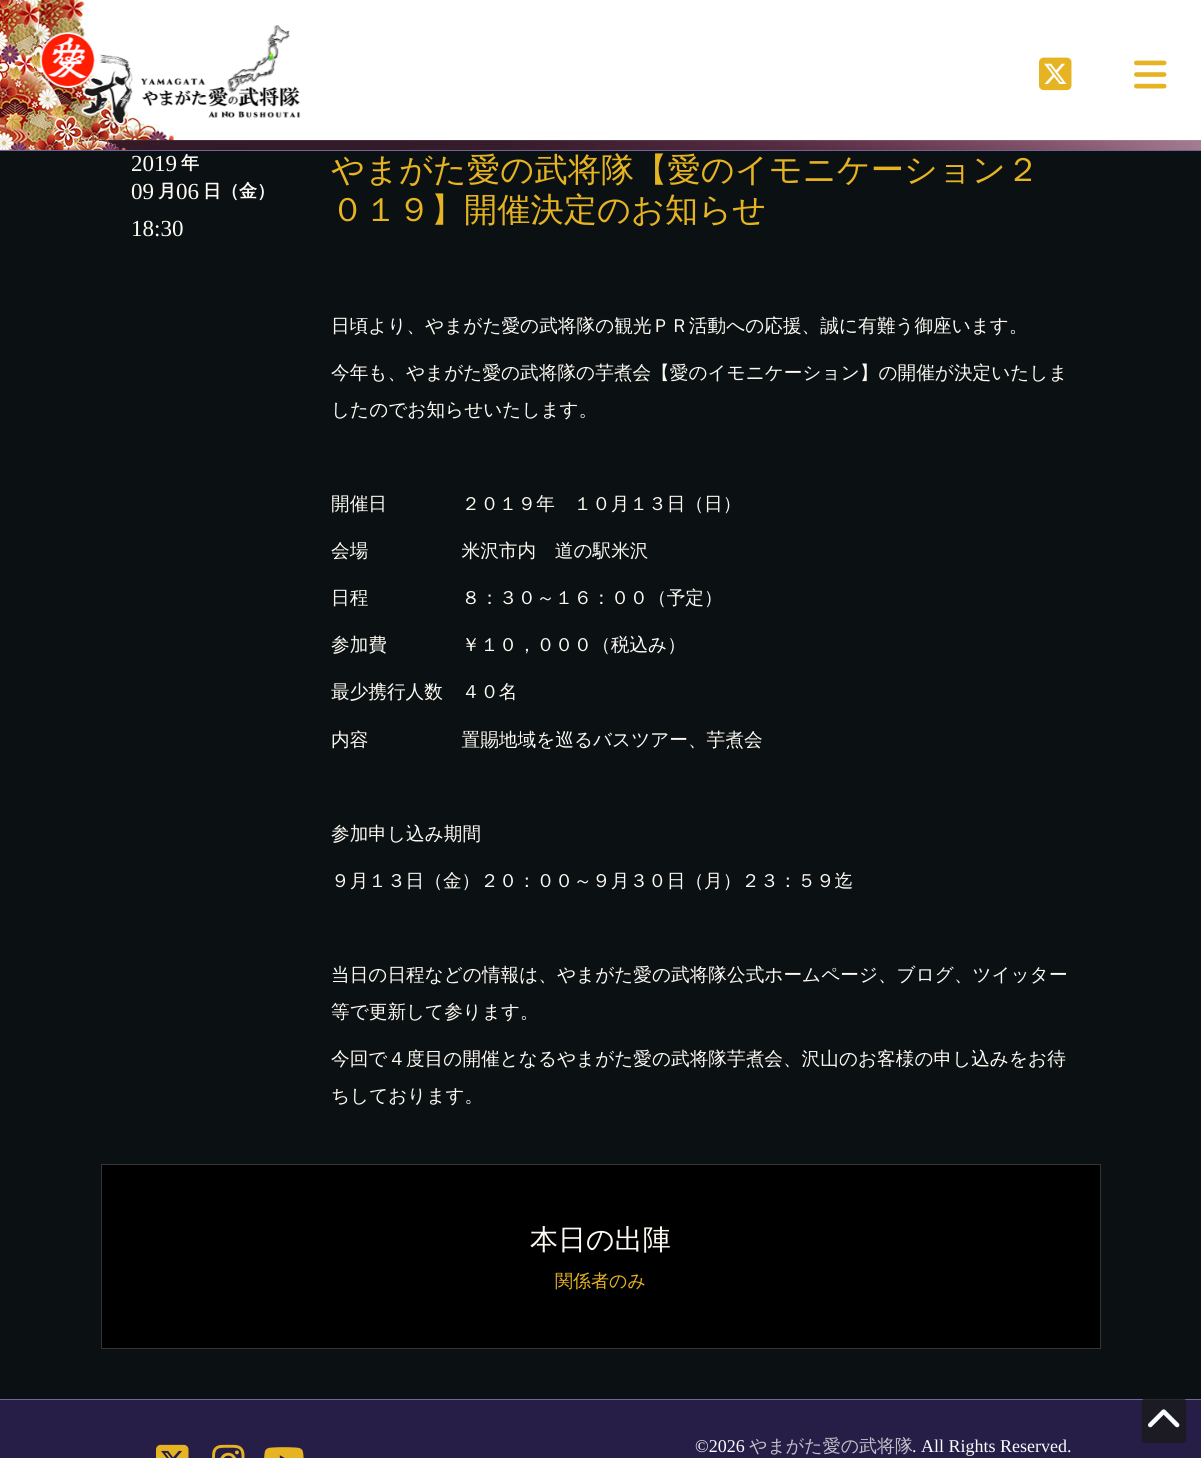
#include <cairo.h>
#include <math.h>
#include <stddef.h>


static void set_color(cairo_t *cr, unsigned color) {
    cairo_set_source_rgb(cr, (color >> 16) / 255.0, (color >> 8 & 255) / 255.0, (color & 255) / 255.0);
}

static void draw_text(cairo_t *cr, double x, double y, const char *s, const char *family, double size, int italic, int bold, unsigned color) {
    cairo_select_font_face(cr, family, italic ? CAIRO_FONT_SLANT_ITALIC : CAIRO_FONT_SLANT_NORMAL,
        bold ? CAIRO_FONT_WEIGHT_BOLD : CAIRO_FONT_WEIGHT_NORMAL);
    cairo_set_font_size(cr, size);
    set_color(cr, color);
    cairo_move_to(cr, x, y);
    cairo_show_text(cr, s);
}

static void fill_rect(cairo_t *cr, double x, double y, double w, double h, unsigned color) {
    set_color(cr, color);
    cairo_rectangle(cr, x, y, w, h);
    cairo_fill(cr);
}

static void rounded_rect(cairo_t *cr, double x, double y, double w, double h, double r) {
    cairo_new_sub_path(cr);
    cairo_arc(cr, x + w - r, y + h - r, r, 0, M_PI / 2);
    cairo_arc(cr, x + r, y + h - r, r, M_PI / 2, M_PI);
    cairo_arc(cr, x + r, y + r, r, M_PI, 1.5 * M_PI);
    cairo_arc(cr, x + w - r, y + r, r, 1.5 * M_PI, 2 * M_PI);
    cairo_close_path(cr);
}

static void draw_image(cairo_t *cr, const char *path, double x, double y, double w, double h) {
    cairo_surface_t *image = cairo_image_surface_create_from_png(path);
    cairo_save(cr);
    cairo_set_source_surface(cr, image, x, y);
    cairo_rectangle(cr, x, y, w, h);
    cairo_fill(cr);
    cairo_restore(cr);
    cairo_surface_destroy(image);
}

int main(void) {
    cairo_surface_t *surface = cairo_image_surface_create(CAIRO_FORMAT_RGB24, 1201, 1458);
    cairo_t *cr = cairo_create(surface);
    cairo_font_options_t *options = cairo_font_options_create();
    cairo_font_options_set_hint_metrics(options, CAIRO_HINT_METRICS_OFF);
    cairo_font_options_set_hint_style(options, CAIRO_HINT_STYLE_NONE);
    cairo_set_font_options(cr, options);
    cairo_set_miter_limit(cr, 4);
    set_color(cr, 0x0B1013);
    cairo_paint(cr);
    draw_image(cr, "assets/img1.png", 0, 0, 1201, 150);
    fill_rect(cr, 0, 150, 1201, 1, 0x70649A);
    draw_image(cr, "assets/img2.png", 39, 25, 262, 101);
    draw_image(cr, "assets/img3.png", 1039, 57, 33, 34);
    draw_image(cr, "assets/img4.png", 1134, 60, 33, 29);
    draw_text(cr, 131, 171, "2019", "Liberation Serif", 23, 0, 0, 0xFCFAF2);
    draw_text(cr, 181, 169, "年", "WenQuanYi Zen Hei", 18, 0, 1, 0xFCFAF2);
    draw_text(cr, 131, 199, "09", "Liberation Serif", 23, 0, 0, 0xFCFAF2);
    draw_text(cr, 158, 197, "月", "WenQuanYi Zen Hei", 18, 0, 1, 0xFCFAF2);
    draw_text(cr, 176, 199, "06", "Liberation Serif", 23, 0, 0, 0xFCFAF2);
    draw_text(cr, 203, 197, "日（金）", "WenQuanYi Zen Hei", 18, 0, 1, 0xFCFAF2);
    draw_text(cr, 131, 236, "18:30", "Liberation Serif", 23, 0, 0, 0xFCFAF2);
    draw_text(cr, 331, 181, "やまがた愛の武将隊【愛のイモニケーション２", "WenQuanYi Zen Hei Medium", 33.25, 0, 0, 0xE6B422);
    draw_text(cr, 331, 221, "０１９】開催決定のお知らせ", "WenQuanYi Zen Hei Medium", 33.25, 0, 0, 0xE6B422);
    draw_text(cr, 331, 332, "日頃より、やまがた愛の武将隊の観光ＰＲ活動への応援、誠に有難う御座います。", "WenQuanYi Zen Hei Medium", 18.65, 0, 0, 0xFCFAF2);
    draw_text(cr, 331, 379, "今年も、やまがた愛の武将隊の芋煮会【愛のイモニケーション】の開催が決定いたしま", "WenQuanYi Zen Hei Medium", 18.65, 0, 0, 0xFCFAF2);
    draw_text(cr, 331, 416, "したのでお知らせいたします。", "WenQuanYi Zen Hei Medium", 18.65, 0, 0, 0xFCFAF2);
    draw_text(cr, 331, 510, "開催日　　　　２０１９年　１０月１３日（日）", "WenQuanYi Zen Hei Medium", 18.65, 0, 0, 0xFCFAF2);
    draw_text(cr, 331, 557, "会場　　　　　米沢市内　道の駅米沢", "WenQuanYi Zen Hei Medium", 18.65, 0, 0, 0xFCFAF2);
    draw_text(cr, 331, 604, "日程　　　　　８：３０～１６：００（予定）", "WenQuanYi Zen Hei Medium", 18.65, 0, 0, 0xFCFAF2);
    draw_text(cr, 331, 651, "参加費　　　　￥１０，０００（税込み）", "WenQuanYi Zen Hei Medium", 18.65, 0, 0, 0xFCFAF2);
    draw_text(cr, 331, 698, "最少携行人数　４０名", "WenQuanYi Zen Hei Medium", 18.65, 0, 0, 0xFCFAF2);
    draw_text(cr, 331, 746, "内容　　　　　置賜地域を巡るバスツアー、芋煮会", "WenQuanYi Zen Hei Medium", 18.65, 0, 0, 0xFCFAF2);
    draw_text(cr, 331, 840, "参加申し込み期間", "WenQuanYi Zen Hei Medium", 18.65, 0, 0, 0xFCFAF2);
    draw_text(cr, 331, 887, "９月１３日（金）２０：００～９月３０日（月）２３：５９迄", "WenQuanYi Zen Hei Medium", 18.65, 0, 0, 0xFCFAF2);
    draw_text(cr, 331, 981, "当日の日程などの情報は、やまがた愛の武将隊公式ホームページ、ブログ、ツイッター", "WenQuanYi Zen Hei Medium", 18.65, 0, 0, 0xFCFAF2);
    draw_text(cr, 331, 1018, "等で更新して参ります。", "WenQuanYi Zen Hei Medium", 18.65, 0, 0, 0xFCFAF2);
    draw_text(cr, 331, 1065, "今回で４度目の開催となるやまがた愛の武将隊芋煮会、沢山のお客様の申し込みをお待", "WenQuanYi Zen Hei Medium", 18.65, 0, 0, 0xFCFAF2);
    draw_text(cr, 331, 1102, "ちしております。", "WenQuanYi Zen Hei Medium", 18.65, 0, 0, 0xFCFAF2);
    set_color(cr, 0x000000);
    cairo_rectangle(cr, 101.5, 1164.5, 999, 184);
    cairo_fill_preserve(cr);
    set_color(cr, 0x363535);
    cairo_set_line_width(cr, 1);
    cairo_stroke(cr);
    draw_text(cr, 530, 1249, "本日の出陣", "WenQuanYi Zen Hei Medium", 28, 0, 0, 0xFCFAF2);
    draw_text(cr, 555, 1287, "関係者のみ", "WenQuanYi Zen Hei Medium", 18, 0, 0, 0xE6B422);
    fill_rect(cr, 0, 1400, 1201, 58, 0x261E47);
    fill_rect(cr, 0, 1399, 1201, 1, 0x70649A);
    draw_image(cr, "assets/img5.png", 156, 1444, 33, 14);
    draw_image(cr, "assets/img6.png", 212, 1444, 33, 14);
    draw_image(cr, "assets/img7.png", 264, 1447, 40, 11);
    draw_text(cr, 695, 1452, "©2026", "Liberation Serif", 18, 0, 0, 0xF7FCFE);
    draw_text(cr, 749, 1452, "やまがた愛の武将隊", "WenQuanYi Zen Hei Medium", 18, 0, 0, 0xC0BFC7);
    draw_text(cr, 912, 1452, ". All Rights Reserved.", "Liberation Serif", 18, 0, 0, 0xF7FCFE);
    cairo_set_source_rgba(cr, 0.102, 0.102, 0.102, 0.8);
    rounded_rect(cr, 1142, 1399, 44, 44, 2);
    cairo_fill(cr);
    draw_image(cr, "assets/img8.png", 1148, 1409, 32, 19);
    cairo_surface_write_to_png(surface, "output.png");
    cairo_font_options_destroy(options);
    cairo_destroy(cr);
    cairo_surface_destroy(surface);
    return 0;
}
